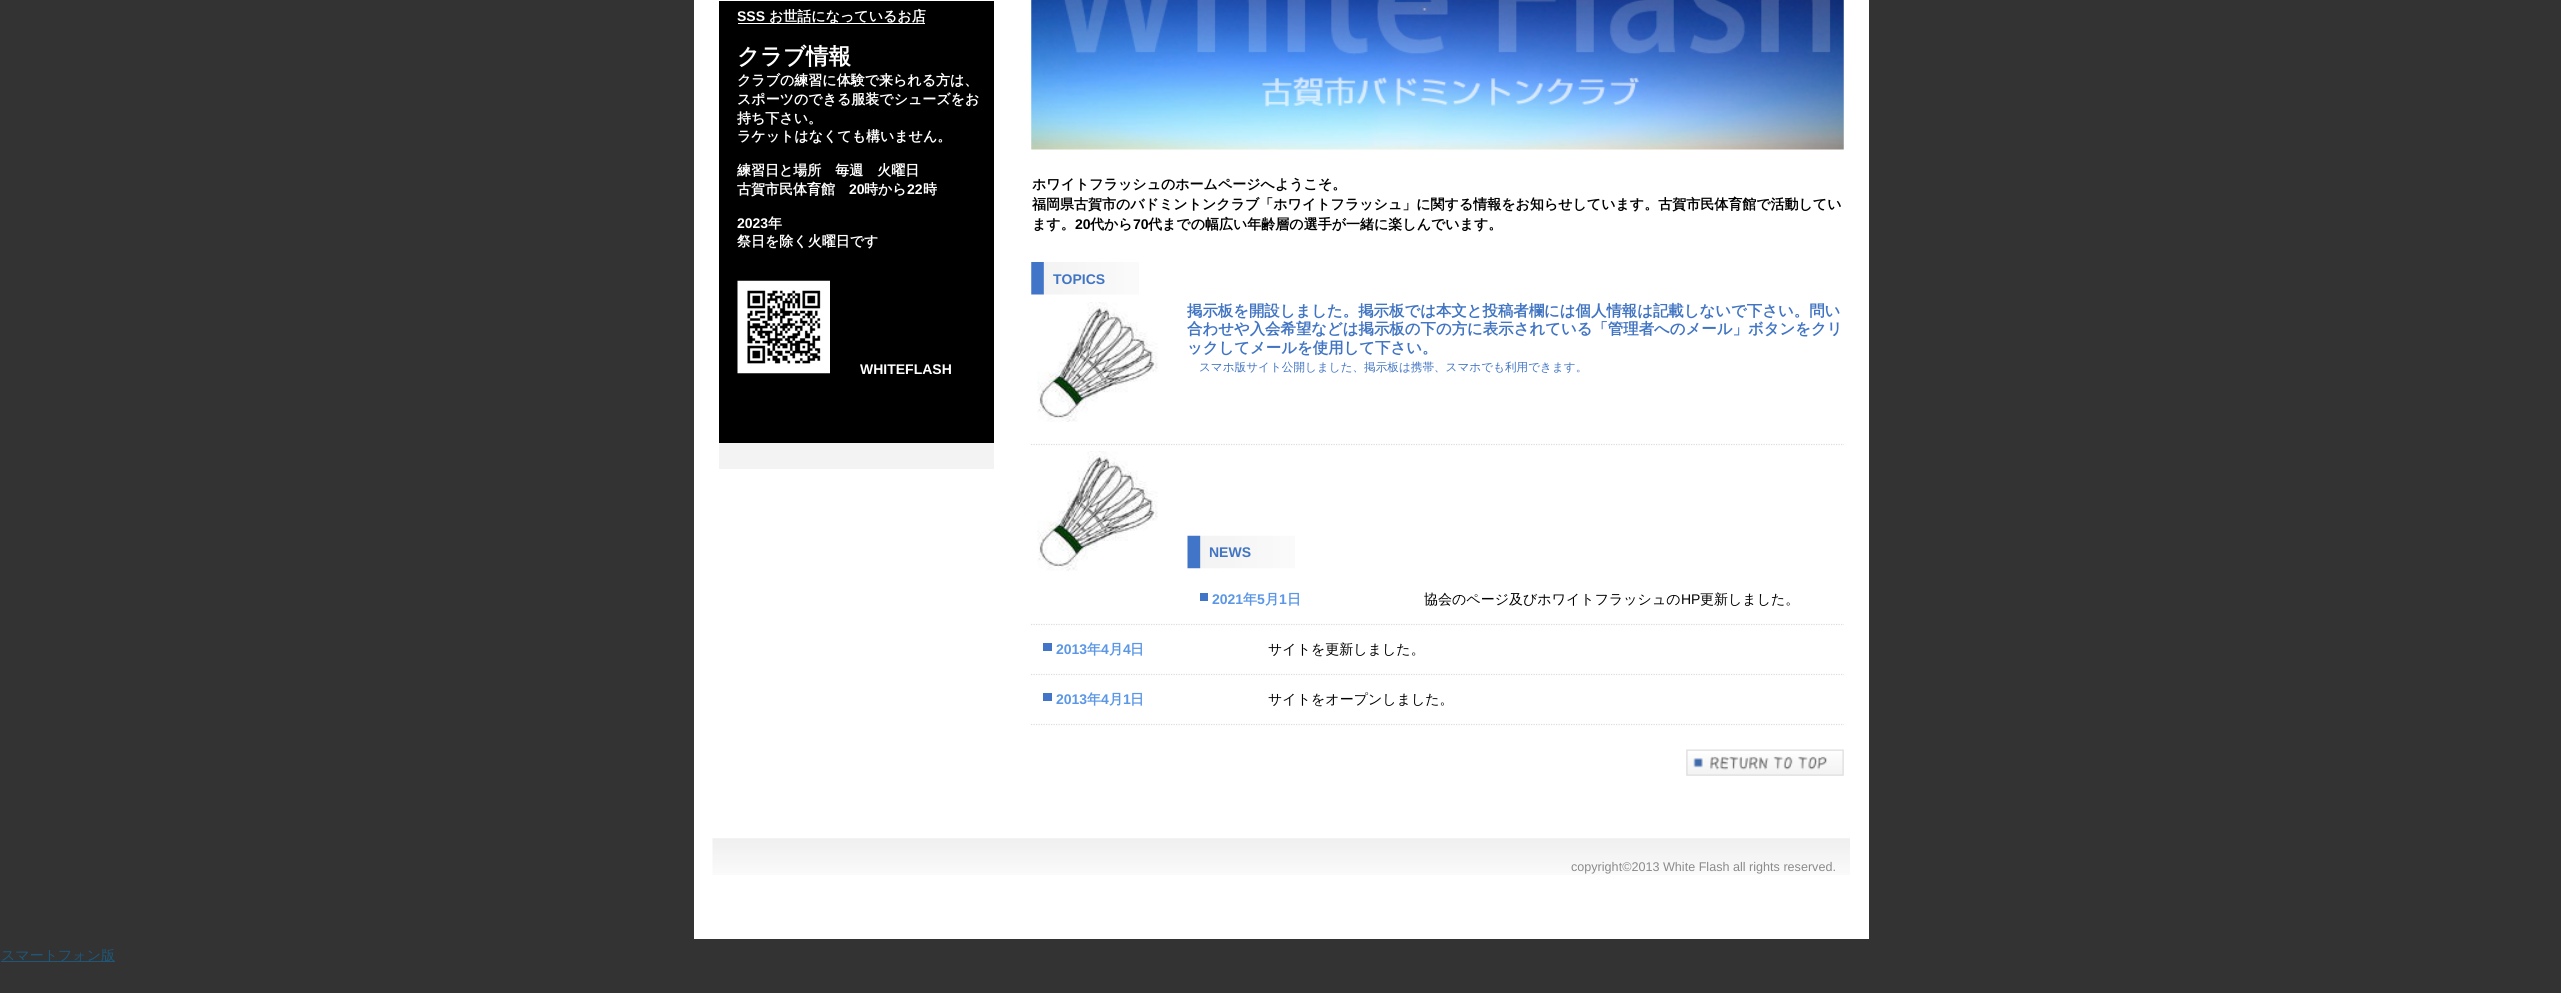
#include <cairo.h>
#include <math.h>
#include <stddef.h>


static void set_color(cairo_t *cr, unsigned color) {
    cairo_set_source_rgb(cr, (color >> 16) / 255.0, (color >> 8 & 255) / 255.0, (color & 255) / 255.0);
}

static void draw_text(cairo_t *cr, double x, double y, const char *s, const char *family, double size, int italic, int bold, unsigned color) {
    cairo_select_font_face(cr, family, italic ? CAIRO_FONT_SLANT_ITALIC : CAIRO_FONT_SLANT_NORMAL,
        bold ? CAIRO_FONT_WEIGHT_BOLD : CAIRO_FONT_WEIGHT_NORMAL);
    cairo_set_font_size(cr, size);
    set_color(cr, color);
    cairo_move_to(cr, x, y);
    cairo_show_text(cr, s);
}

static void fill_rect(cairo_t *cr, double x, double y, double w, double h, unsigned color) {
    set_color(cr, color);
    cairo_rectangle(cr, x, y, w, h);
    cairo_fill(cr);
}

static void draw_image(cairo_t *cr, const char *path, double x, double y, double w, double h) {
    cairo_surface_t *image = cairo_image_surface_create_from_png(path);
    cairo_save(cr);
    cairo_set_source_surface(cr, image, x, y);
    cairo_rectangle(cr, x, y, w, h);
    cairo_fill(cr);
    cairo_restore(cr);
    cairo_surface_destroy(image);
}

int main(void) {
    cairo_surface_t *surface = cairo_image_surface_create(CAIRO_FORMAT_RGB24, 2561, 993);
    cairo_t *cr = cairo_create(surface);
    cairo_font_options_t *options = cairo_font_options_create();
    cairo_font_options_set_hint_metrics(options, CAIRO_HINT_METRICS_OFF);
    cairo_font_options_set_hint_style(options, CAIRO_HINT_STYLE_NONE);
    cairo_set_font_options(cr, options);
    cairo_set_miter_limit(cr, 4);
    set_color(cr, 0x333333);
    cairo_paint(cr);
    fill_rect(cr, 694, 0, 1175, 939, 0xFFFFFF);
    fill_rect(cr, 719, 443, 275, 26, 0xF3F3F3);
    fill_rect(cr, 719, 1, 275, 442, 0x000000);
    draw_text(cr, 737, 21, "SSS", "Liberation Sans", 14, 0, 1, 0xFFFFFF);
    fill_rect(cr, 738, 23, 187, 1, 0xFFFFFF);
    draw_text(cr, 769, 21, "お世話になっているお店", "WenQuanYi Zen Hei", 14, 0, 1, 0xFFFFFF);
    draw_text(cr, 737, 64, "クラブ情報", "WenQuanYi Zen Hei", 22.5, 0, 1, 0xFFFFFF);
    draw_text(cr, 737, 85, "クラブの練習に体験で来られる方は、", "WenQuanYi Zen Hei", 14, 0, 1, 0xFFFFFF);
    draw_text(cr, 737, 104, "スポーツのできる服装でシューズをお", "WenQuanYi Zen Hei", 14, 0, 1, 0xFFFFFF);
    draw_text(cr, 737, 123, "持ち下さい。", "WenQuanYi Zen Hei", 14, 0, 1, 0xFFFFFF);
    draw_text(cr, 737, 141, "ラケットはなくても構いません。", "WenQuanYi Zen Hei", 14, 0, 1, 0xFFFFFF);
    draw_text(cr, 737, 175, "練習日と場所　毎週　火曜日", "WenQuanYi Zen Hei", 14, 0, 1, 0xFFFFFF);
    draw_text(cr, 737, 194, "古賀市民体育館", "WenQuanYi Zen Hei", 14, 0, 1, 0xFFFFFF);
    draw_text(cr, 849, 194, "20", "Liberation Sans", 14, 0, 1, 0xFFFFFF);
    draw_text(cr, 864, 194, "時から", "WenQuanYi Zen Hei", 14, 0, 1, 0xFFFFFF);
    draw_text(cr, 907, 194, "22", "Liberation Sans", 14, 0, 1, 0xFFFFFF);
    draw_text(cr, 923, 194, "時", "WenQuanYi Zen Hei", 14, 0, 1, 0xFFFFFF);
    draw_text(cr, 737, 228, "2023", "Liberation Sans", 14, 0, 1, 0xFFFFFF);
    draw_text(cr, 768, 228, "年", "WenQuanYi Zen Hei", 14, 0, 1, 0xFFFFFF);
    draw_text(cr, 737, 246, "祭日を除く火曜日です", "WenQuanYi Zen Hei", 14, 0, 1, 0xFFFFFF);
    draw_image(cr, "assets/img1.png", 737, 280, 93, 94);
    draw_text(cr, 860, 374, "WHITEFLASH", "Liberation Sans", 14, 0, 1, 0xFFFFFF);
    draw_image(cr, "assets/img2.png", 1031, 0, 813, 150);
    draw_text(cr, 1032, 189, "ホワイトフラッシュのホームページへようこそ。", "WenQuanYi Zen Hei", 14, 0, 1, 0x000000);
    draw_text(cr, 1032, 209, "福岡県古賀市のバドミントンクラブ「ホワイトフラッシュ」に関する情報をお知らせしています。古賀市民体育館で活動してい", "WenQuanYi Zen Hei", 14, 0, 1, 0x000000);
    draw_text(cr, 1032, 229, "ます。", "WenQuanYi Zen Hei", 14, 0, 1, 0x000000);
    draw_text(cr, 1075, 229, "20", "Liberation Sans", 14, 0, 1, 0x000000);
    draw_text(cr, 1090, 229, "代から", "WenQuanYi Zen Hei", 14, 0, 1, 0x000000);
    draw_text(cr, 1133, 229, "70", "Liberation Sans", 14, 0, 1, 0x000000);
    draw_text(cr, 1148, 229, "代までの幅広い年齢層の選手が一緒に楽しんでいます。", "WenQuanYi Zen Hei", 14, 0, 1, 0x000000);
    draw_image(cr, "assets/img3.png", 1031, 262, 108, 33);
    draw_text(cr, 1053, 284, "TOPICS", "Liberation Sans", 14, 0, 1, 0x4175C3);
    draw_image(cr, "assets/img4.png", 1037, 302, 121, 120);
    draw_text(cr, 1187, 316, "掲示板を開設しました。掲示板では本文と投稿者欄には個人情報は記載しないで下さい。問い", "WenQuanYi Zen Hei", 15.4, 0, 1, 0x4175C3);
    draw_text(cr, 1187, 334, "合わせや入会希望などは掲示板の下の方に表示されている「管理者へのメール」ボタンをクリ", "WenQuanYi Zen Hei", 15.4, 0, 1, 0x4175C3);
    draw_text(cr, 1187, 353, "ックしてメールを使用して下さい。", "WenQuanYi Zen Hei", 15.4, 0, 1, 0x4175C3);
    draw_text(cr, 1199, 371, "スマホ版サイト公開しました、掲示板は携帯、スマホでも利用できます。", "WenQuanYi Zen Hei Medium", 11.6, 0, 0, 0x4175C3);
    cairo_new_path(cr);
    cairo_move_to(cr, 1031, 444.5);
    cairo_line_to(cr, 1844, 444.5);
    set_color(cr, 0xDDDDDD);
    cairo_set_line_width(cr, 1.2);
    cairo_set_dash(cr, (double[]){1.25, 1.25}, 2, 0);
    cairo_stroke(cr);
    draw_image(cr, "assets/img5.png", 1037, 451, 121, 120);
    draw_image(cr, "assets/img6.png", 1187, 535, 108, 34);
    draw_text(cr, 1209, 557, "NEWS", "Liberation Sans", 14, 0, 1, 0x4175C3);
    fill_rect(cr, 1200, 593, 8, 8, 0x4175C7);
    draw_text(cr, 1212, 604, "2021", "Liberation Sans", 14, 0, 1, 0x5B97E5);
    draw_text(cr, 1243, 604, "年", "WenQuanYi Zen Hei", 14, 0, 1, 0x5B97E5);
    draw_text(cr, 1257, 604, "5", "Liberation Sans", 14, 0, 1, 0x5B97E5);
    draw_text(cr, 1265, 604, "月", "WenQuanYi Zen Hei", 14, 0, 1, 0x5B97E5);
    draw_text(cr, 1279, 604, "1", "Liberation Sans", 14, 0, 1, 0x5B97E5);
    draw_text(cr, 1287, 604, "日", "WenQuanYi Zen Hei", 14, 0, 1, 0x5B97E5);
    cairo_new_path(cr);
    cairo_move_to(cr, 1031, 624.5);
    cairo_line_to(cr, 1844, 624.5);
    set_color(cr, 0xDDDDDD);
    cairo_stroke(cr);
    draw_text(cr, 1424, 604, "協会のページ及びホワイトフラッシュの", "WenQuanYi Zen Hei Medium", 14, 0, 0, 0x000000);
    draw_text(cr, 1681, 604, "HP", "Liberation Sans", 14, 0, 0, 0x000000);
    draw_text(cr, 1700, 604, "更新しました。", "WenQuanYi Zen Hei Medium", 14, 0, 0, 0x000000);
    fill_rect(cr, 1043, 643, 9, 8, 0x4175C7);
    draw_text(cr, 1056, 654, "2013", "Liberation Sans", 14, 0, 1, 0x5B97E5);
    draw_text(cr, 1087, 654, "年", "WenQuanYi Zen Hei", 14, 0, 1, 0x5B97E5);
    draw_text(cr, 1101, 654, "4", "Liberation Sans", 14, 0, 1, 0x5B97E5);
    draw_text(cr, 1109, 654, "月", "WenQuanYi Zen Hei", 14, 0, 1, 0x5B97E5);
    draw_text(cr, 1123, 654, "4", "Liberation Sans", 14, 0, 1, 0x5B97E5);
    draw_text(cr, 1130, 654, "日", "WenQuanYi Zen Hei", 14, 0, 1, 0x5B97E5);
    cairo_new_path(cr);
    cairo_move_to(cr, 1031, 674.5);
    cairo_line_to(cr, 1844, 674.5);
    set_color(cr, 0xDDDDDD);
    cairo_stroke(cr);
    draw_text(cr, 1268, 654, "サイトを更新しました。", "WenQuanYi Zen Hei Medium", 14, 0, 0, 0x000000);
    fill_rect(cr, 1043, 693, 9, 8, 0x4175C7);
    draw_text(cr, 1056, 704, "2013", "Liberation Sans", 14, 0, 1, 0x5B97E5);
    draw_text(cr, 1087, 704, "年", "WenQuanYi Zen Hei", 14, 0, 1, 0x5B97E5);
    draw_text(cr, 1101, 704, "4", "Liberation Sans", 14, 0, 1, 0x5B97E5);
    draw_text(cr, 1109, 704, "月", "WenQuanYi Zen Hei", 14, 0, 1, 0x5B97E5);
    draw_text(cr, 1123, 704, "1", "Liberation Sans", 14, 0, 1, 0x5B97E5);
    draw_text(cr, 1130, 704, "日", "WenQuanYi Zen Hei", 14, 0, 1, 0x5B97E5);
    cairo_new_path(cr);
    cairo_move_to(cr, 1031, 724.5);
    cairo_line_to(cr, 1844, 724.5);
    set_color(cr, 0xDDDDDD);
    cairo_stroke(cr);
    draw_text(cr, 1268, 704, "サイトをオープンしました。", "WenQuanYi Zen Hei Medium", 14, 0, 0, 0x000000);
    draw_image(cr, "assets/img7.png", 1686, 749, 158, 27);
    draw_image(cr, "assets/img8.png", 712, 838, 1138, 37);
    draw_text(cr, 1571, 871, "copyright©2013 White Flash all rights reserved.", "Liberation Sans", 12.6, 0, 0, 0x8A8A8A);
    fill_rect(cr, 1, 961, 114, 1, 0x1E5779);
    draw_text(cr, 1, 960, "スマートフォン版", "WenQuanYi Zen Hei Medium", 14, 0, 0, 0x1E5779);
    cairo_surface_write_to_png(surface, "output.png");
    cairo_font_options_destroy(options);
    cairo_destroy(cr);
    cairo_surface_destroy(surface);
    return 0;
}
